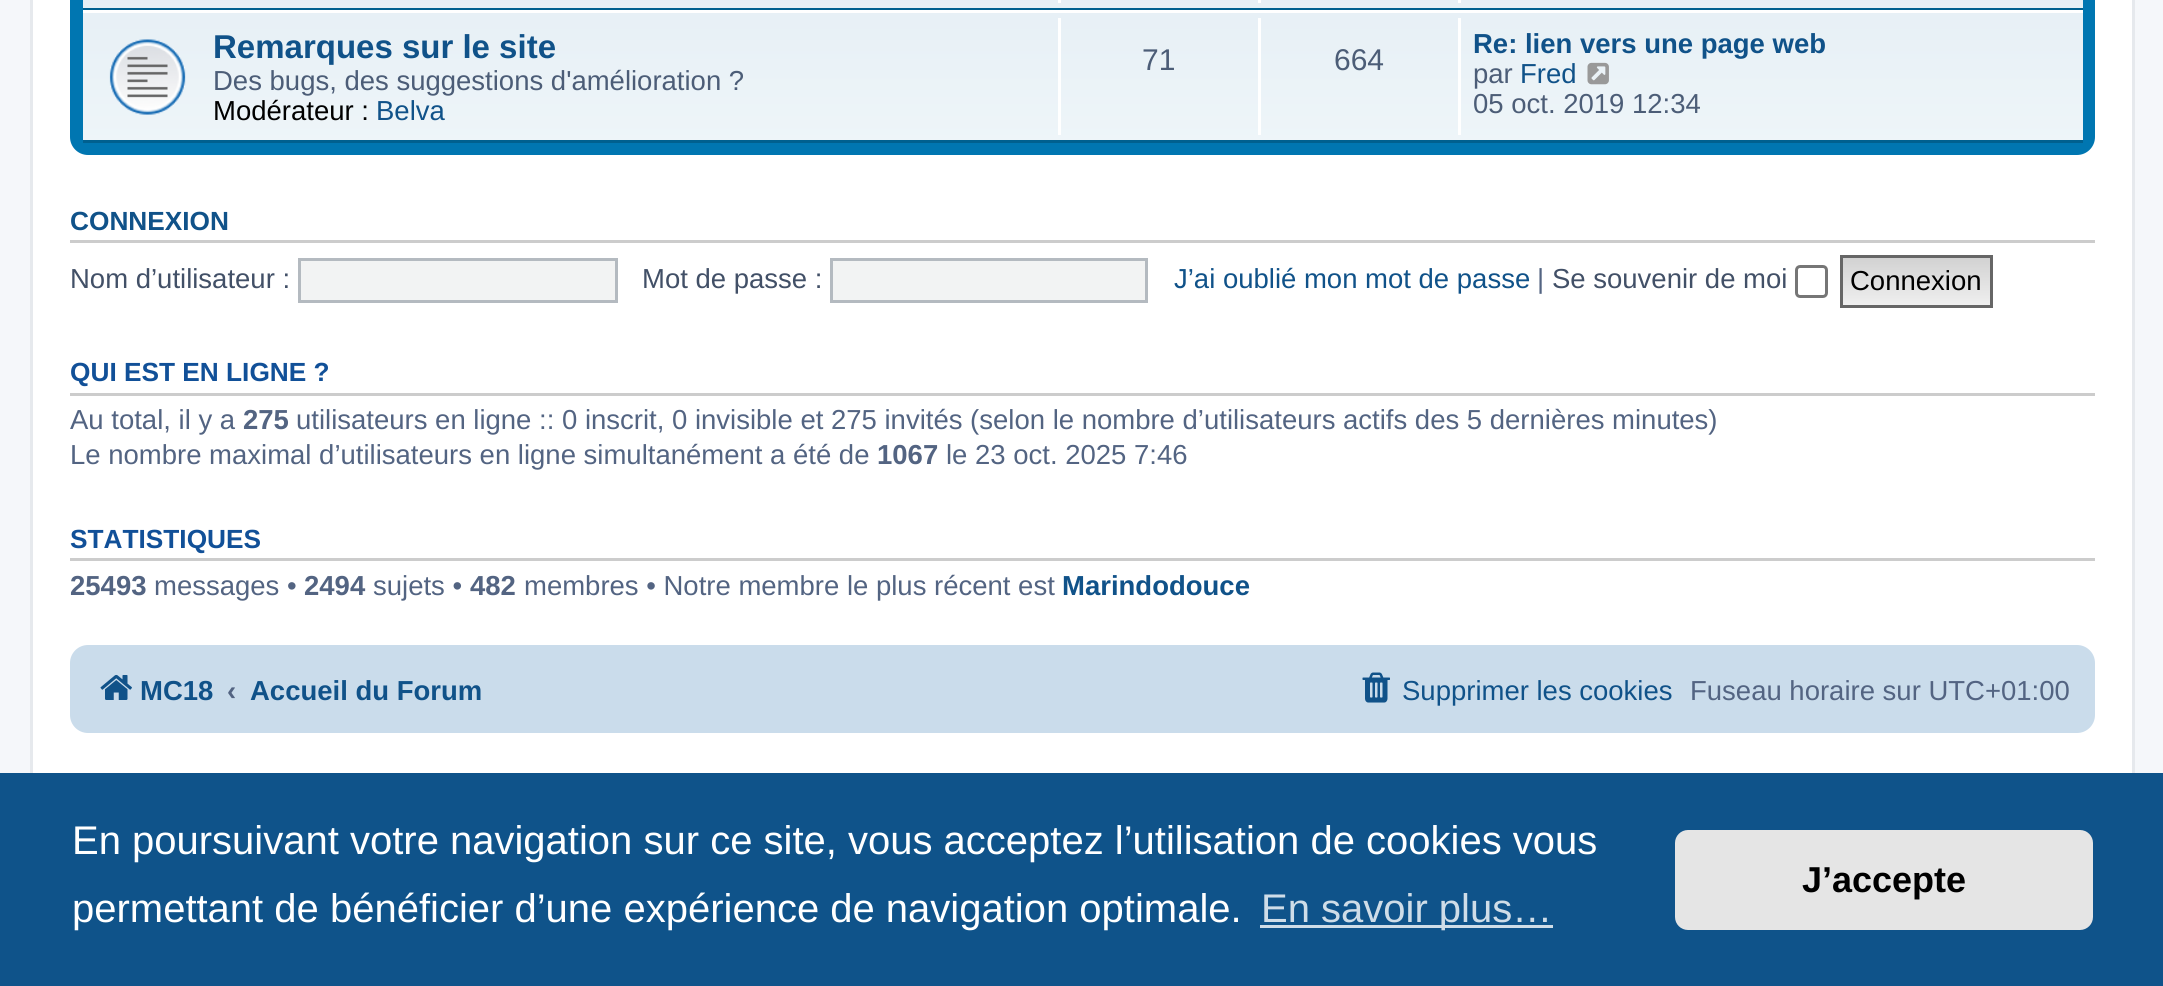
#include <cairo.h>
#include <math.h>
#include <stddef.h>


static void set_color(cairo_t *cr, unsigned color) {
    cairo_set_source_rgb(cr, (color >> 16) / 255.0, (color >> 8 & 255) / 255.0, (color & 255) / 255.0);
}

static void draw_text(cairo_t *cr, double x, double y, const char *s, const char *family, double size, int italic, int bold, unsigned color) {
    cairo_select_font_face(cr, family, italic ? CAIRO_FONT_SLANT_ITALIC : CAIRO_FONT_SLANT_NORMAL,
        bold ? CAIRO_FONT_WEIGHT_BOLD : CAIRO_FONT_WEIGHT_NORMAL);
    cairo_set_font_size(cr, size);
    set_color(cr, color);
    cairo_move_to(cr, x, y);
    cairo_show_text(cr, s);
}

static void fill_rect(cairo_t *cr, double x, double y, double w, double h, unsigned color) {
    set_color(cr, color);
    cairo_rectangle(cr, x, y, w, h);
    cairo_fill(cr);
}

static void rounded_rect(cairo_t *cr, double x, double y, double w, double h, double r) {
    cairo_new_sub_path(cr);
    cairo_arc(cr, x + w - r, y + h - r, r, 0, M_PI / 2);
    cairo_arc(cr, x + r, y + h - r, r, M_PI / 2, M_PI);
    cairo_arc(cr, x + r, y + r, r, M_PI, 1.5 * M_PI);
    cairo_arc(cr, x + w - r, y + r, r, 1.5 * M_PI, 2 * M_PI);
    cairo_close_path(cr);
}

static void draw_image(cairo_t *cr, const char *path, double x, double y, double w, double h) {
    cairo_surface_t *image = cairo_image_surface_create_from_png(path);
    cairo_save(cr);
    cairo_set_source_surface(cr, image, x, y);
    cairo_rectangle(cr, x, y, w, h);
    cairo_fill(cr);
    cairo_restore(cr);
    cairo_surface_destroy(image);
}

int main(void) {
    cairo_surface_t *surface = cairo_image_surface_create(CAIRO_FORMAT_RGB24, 2163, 986);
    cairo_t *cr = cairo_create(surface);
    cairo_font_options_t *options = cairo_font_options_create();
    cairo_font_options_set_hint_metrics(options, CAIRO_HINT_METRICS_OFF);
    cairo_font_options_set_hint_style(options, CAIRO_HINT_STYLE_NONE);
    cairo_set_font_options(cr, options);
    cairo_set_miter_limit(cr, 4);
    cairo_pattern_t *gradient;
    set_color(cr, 0xF5F7FA);
    cairo_paint(cr);
    fill_rect(cr, 33, 0, 2099, 773, 0xFFFFFF);
    cairo_rectangle(cr, 31.5, -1.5, 2102, 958);
    set_color(cr, 0xE6E9ED);
    cairo_set_line_width(cr, 3);
    cairo_stroke(cr);
    gradient = cairo_pattern_create_linear(1083, -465, 1083, 155);
    cairo_pattern_add_color_stop_rgba(gradient, 0, 0.416, 0.808, 1, 1);
    cairo_pattern_add_color_stop_rgba(gradient, 0.01, 0.071, 0.639, 0.922, 1);
    cairo_pattern_add_color_stop_rgba(gradient, 0.37, 0, 0.463, 0.694, 1);
    cairo_pattern_add_color_stop_rgba(gradient, 1, 0, 0.463, 0.694, 1);
    cairo_set_source(cr, gradient);
    cairo_pattern_destroy(gradient);
    rounded_rect(cr, 70, -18, 2025, 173, 18);
    cairo_fill(cr);
    gradient = cairo_pattern_create_linear(1083, -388, 1083, 143);
    cairo_pattern_add_color_stop_rgba(gradient, 0, 0.824, 0.878, 0.922, 1);
    cairo_pattern_add_color_stop_rgba(gradient, 1, 0.933, 0.961, 0.976, 1);
    cairo_set_source(cr, gradient);
    cairo_pattern_destroy(gradient);
    cairo_rectangle(cr, 83, 0, 2000, 140);
    cairo_fill(cr);
    fill_rect(cr, 83, 8, 2000, 2, 0x00608F);
    fill_rect(cr, 1058, 0, 3, 3, 0xFFFFFF);
    fill_rect(cr, 1258, 0, 3, 3, 0xFFFFFF);
    fill_rect(cr, 1458, 0, 3, 3, 0xFFFFFF);
    fill_rect(cr, 83, 10, 2000, 3, 0xFFFFFF);
    fill_rect(cr, 83, 140, 2000, 3, 0x00608F);
    draw_image(cr, "assets/img1.png", 109, 39, 77, 76);
    draw_text(cr, 213, 58, "Remarques sur le site", "Liberation Sans", 33, 0, 1, 0x105289);
    draw_text(cr, 213, 90, "Des bugs, des suggestions d'amélioration ?", "Liberation Sans", 27.5, 0, 0, 0x4C5D77);
    draw_text(cr, 213, 120, "Modérateur :", "Liberation Sans", 27.5, 0, 0, 0x000000);
    draw_text(cr, 376, 120, "Belva", "Liberation Sans", 27.5, 0, 0, 0x105289);
    fill_rect(cr, 1058, 18, 3, 117, 0xFFFFFF);
    draw_text(cr, 1142, 70, "71", "Liberation Sans", 30, 0, 0, 0x4C5D77);
    fill_rect(cr, 1258, 18, 3, 117, 0xFFFFFF);
    draw_text(cr, 1334, 70, "664", "Liberation Sans", 30, 0, 0, 0x4C5D77);
    fill_rect(cr, 1458, 18, 3, 117, 0xFFFFFF);
    draw_text(cr, 1473, 53, "Re: lien vers une page web", "Liberation Sans", 27.5, 0, 1, 0x105289);
    draw_text(cr, 1473, 83, "par", "Liberation Sans", 27.5, 0, 0, 0x4C5D77);
    draw_text(cr, 1520, 83, "Fred", "Liberation Sans", 27.5, 0, 0, 0x105289);
    draw_image(cr, "assets/img2.png", 1587, 62, 22, 23);
    draw_text(cr, 1473, 113, "05 oct. 2019 12:34", "Liberation Sans", 27.5, 0, 0, 0x4C5D77);
    fill_rect(cr, 70, 240, 2025, 3, 0xCCCCCC);
    draw_text(cr, 70, 230, "CONNEXION", "Liberation Sans", 26.25, 0, 1, 0x105289);
    draw_text(cr, 70, 288, "Nom d’utilisateur :", "Liberation Sans", 27.5, 0, 0, 0x425067);
    set_color(cr, 0xF2F3F3);
    cairo_rectangle(cr, 299.5, 259.5, 317, 42);
    cairo_fill_preserve(cr);
    set_color(cr, 0xB4BAC0);
    cairo_stroke(cr);
    draw_text(cr, 642, 288, "Mot de passe :", "Liberation Sans", 27.5, 0, 0, 0x425067);
    set_color(cr, 0xF2F3F3);
    cairo_rectangle(cr, 831.5, 259.5, 315, 42);
    cairo_fill_preserve(cr);
    set_color(cr, 0xB4BAC0);
    cairo_stroke(cr);
    draw_text(cr, 1174, 288, "J’ai oublié mon mot de passe", "Liberation Sans", 27.5, 0, 0, 0x105289);
    draw_text(cr, 1537, 288, "|", "Liberation Sans", 27.5, 0, 0, 0x536482);
    draw_text(cr, 1552, 288, "Se souvenir de moi", "Liberation Sans", 27.5, 0, 0, 0x425067);
    rounded_rect(cr, 1796.5, 266.5, 30, 30, 3.5);
    set_color(cr, 0x767676);
    cairo_stroke(cr);
    gradient = cairo_pattern_create_linear(1916, 258, 1916, 305);
    cairo_pattern_add_color_stop_rgba(gradient, 0, 0.824, 0.824, 0.824, 1);
    cairo_pattern_add_color_stop_rgba(gradient, 1, 0.937, 0.937, 0.937, 1);
    cairo_set_source(cr, gradient);
    cairo_pattern_destroy(gradient);
    cairo_rectangle(cr, 1843, 258, 147, 47);
    cairo_fill(cr);
    cairo_rectangle(cr, 1841.5, 256.5, 150, 50);
    set_color(cr, 0x666666);
    cairo_stroke(cr);
    draw_text(cr, 1850, 290, "Connexion", "Liberation Sans", 27.5, 0, 0, 0x000000);
    fill_rect(cr, 70, 393, 2025, 3, 0xCCCCCC);
    draw_text(cr, 70, 381, "QUI EST EN LIGNE ?", "Liberation Sans", 26.25, 0, 1, 0x115098);
    draw_text(cr, 70, 429, "Au total, il y a", "Liberation Sans", 27.5, 0, 0, 0x536482);
    draw_text(cr, 243, 429, "275", "Liberation Sans", 27.5, 0, 1, 0x536482);
    draw_text(cr, 296, 429, "utilisateurs en ligne :: 0 inscrit, 0 invisible et 275 invités (selon le nombre d’utilisateurs actifs des 5 dernières minutes)", "Liberation Sans", 27.5, 0, 0, 0x536482);
    draw_text(cr, 70, 464, "Le nombre maximal d’utilisateurs en ligne simultanément a été de", "Liberation Sans", 27.5, 0, 0, 0x536482);
    draw_text(cr, 877, 464, "1067", "Liberation Sans", 27.5, 0, 1, 0x536482);
    draw_text(cr, 946, 464, "le 23 oct. 2025 7:46", "Liberation Sans", 27.5, 0, 0, 0x536482);
    fill_rect(cr, 70, 558, 2025, 3, 0xCCCCCC);
    draw_text(cr, 70, 548, "STATISTIQUES", "Liberation Sans", 26.25, 0, 1, 0x115098);
    draw_text(cr, 70, 595, "25493", "Liberation Sans", 27.5, 0, 1, 0x536482);
    draw_text(cr, 154, 595, "messages •", "Liberation Sans", 27.5, 0, 0, 0x536482);
    draw_text(cr, 304, 595, "2494", "Liberation Sans", 27.5, 0, 1, 0x536482);
    draw_text(cr, 373, 595, "sujets •", "Liberation Sans", 27.5, 0, 0, 0x536482);
    draw_text(cr, 470, 595, "482", "Liberation Sans", 27.5, 0, 1, 0x536482);
    draw_text(cr, 524, 595, "membres • Notre membre le plus récent est", "Liberation Sans", 27.5, 0, 0, 0x536482);
    draw_text(cr, 1062, 595, "Marindodouce", "Liberation Sans", 27.5, 0, 1, 0x105289);
    set_color(cr, 0xCADCEB);
    rounded_rect(cr, 70, 645, 2025, 88, 18);
    cairo_fill(cr);
    draw_image(cr, "assets/img3.png", 100, 674, 32, 26);
    draw_text(cr, 140, 700, "MC18", "Liberation Sans", 27.5, 0, 1, 0x105289);
    draw_text(cr, 227, 700, "‹", "Liberation Sans", 27.5, 0, 1, 0x536482);
    draw_text(cr, 250, 700, "Accueil du Forum", "Liberation Sans", 27.5, 0, 1, 0x105289);
    draw_image(cr, "assets/img4.png", 1362, 672, 28, 31);
    draw_text(cr, 1402, 700, "Supprimer les cookies", "Liberation Sans", 27.5, 0, 0, 0x105289);
    draw_text(cr, 1690, 700, "Fuseau horaire sur UTC+01:00", "Liberation Sans", 27.5, 0, 0, 0x536482);
    fill_rect(cr, 0, 773, 2163, 213, 0x0F538A);
    draw_text(cr, 72, 854, "En poursuivant votre navigation sur ce site, vous acceptez l’utilisation de cookies vous", "Liberation Sans", 40, 0, 0, 0xFFFFFF);
    draw_text(cr, 72, 922, "permettant de bénéficier d’une expérience de navigation optimale.", "Liberation Sans", 40, 0, 0, 0xFFFFFF);
    fill_rect(cr, 1260, 925, 293, 3, 0xCFDDE8);
    draw_text(cr, 1261, 922, "En savoir plus…", "Liberation Sans", 40, 0, 0, 0xCFDDE8);
    set_color(cr, 0xE5E5E5);
    rounded_rect(cr, 1675, 830, 418, 100, 13);
    cairo_fill(cr);
    draw_text(cr, 1802, 892, "J’accepte", "Liberation Sans", 36, 0, 1, 0x000000);
    cairo_surface_write_to_png(surface, "output.png");
    cairo_font_options_destroy(options);
    cairo_destroy(cr);
    cairo_surface_destroy(surface);
    return 0;
}
